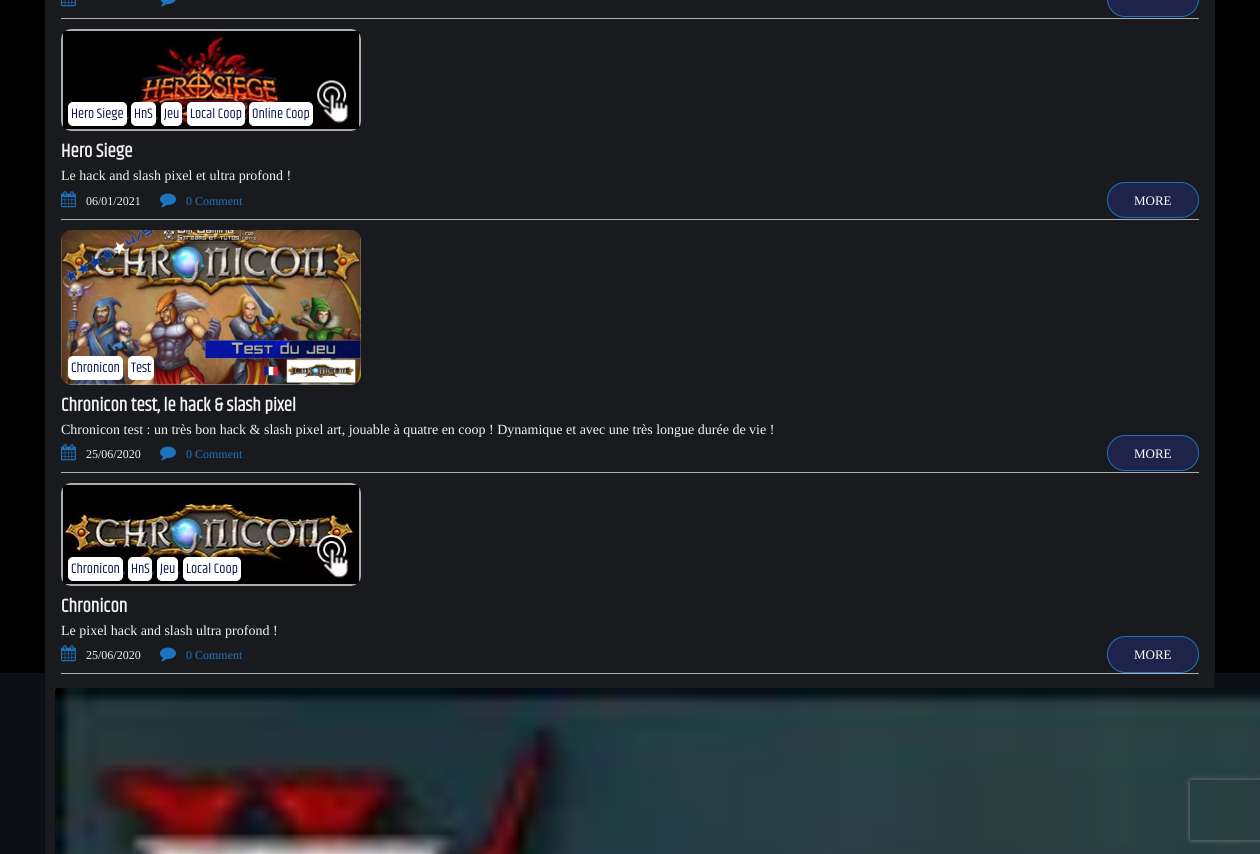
#include <cairo.h>
#include <math.h>
#include <stddef.h>


static void set_color(cairo_t *cr, unsigned color) {
    cairo_set_source_rgb(cr, (color >> 16) / 255.0, (color >> 8 & 255) / 255.0, (color & 255) / 255.0);
}

static void draw_text(cairo_t *cr, double x, double y, const char *s, const char *family, double size, int italic, int bold, unsigned color) {
    cairo_select_font_face(cr, family, italic ? CAIRO_FONT_SLANT_ITALIC : CAIRO_FONT_SLANT_NORMAL,
        bold ? CAIRO_FONT_WEIGHT_BOLD : CAIRO_FONT_WEIGHT_NORMAL);
    cairo_set_font_size(cr, size);
    set_color(cr, color);
    cairo_move_to(cr, x, y);
    cairo_show_text(cr, s);
}

static void fill_rect(cairo_t *cr, double x, double y, double w, double h, unsigned color) {
    set_color(cr, color);
    cairo_rectangle(cr, x, y, w, h);
    cairo_fill(cr);
}

static void rounded_rect(cairo_t *cr, double x, double y, double w, double h, double r) {
    cairo_new_sub_path(cr);
    cairo_arc(cr, x + w - r, y + h - r, r, 0, M_PI / 2);
    cairo_arc(cr, x + r, y + h - r, r, M_PI / 2, M_PI);
    cairo_arc(cr, x + r, y + r, r, M_PI, 1.5 * M_PI);
    cairo_arc(cr, x + w - r, y + r, r, 1.5 * M_PI, 2 * M_PI);
    cairo_close_path(cr);
}

static void draw_shadow(cairo_t *cr, double x, double y, double w, double h, double r, double blur, double alpha) {
    cairo_push_group_with_content(cr, CAIRO_CONTENT_ALPHA);
    cairo_set_operator(cr, CAIRO_OPERATOR_SOURCE);
    for (int i = 15; i >= -15 && fmin(w, h) + blur * i / 3 > 0; i -= 2) {
        double e = blur * i / 6;
        cairo_set_source_rgba(cr, 0, 0, 0, alpha * erfc((i - 1) / 8.5) / 2);
        rounded_rect(cr, x - e, y - e, w + 2 * e, h + 2 * e, fmax(0, fmin(r + e + blur * .6, fmin(w, h) / 2 + e)));
        cairo_fill(cr);
    }
    cairo_pattern_t *soft = cairo_pop_group(cr);
    cairo_mask(cr, soft);
    cairo_pattern_destroy(soft);
}

static void draw_image(cairo_t *cr, const char *path, double x, double y, double w, double h) {
    cairo_surface_t *image = cairo_image_surface_create_from_png(path);
    cairo_save(cr);
    cairo_set_source_surface(cr, image, x, y);
    cairo_rectangle(cr, x, y, w, h);
    cairo_fill(cr);
    cairo_restore(cr);
    cairo_surface_destroy(image);
}

int main(void) {
    cairo_surface_t *surface = cairo_image_surface_create(CAIRO_FORMAT_RGB24, 1260, 854);
    cairo_t *cr = cairo_create(surface);
    cairo_font_options_t *options = cairo_font_options_create();
    cairo_font_options_set_hint_metrics(options, CAIRO_HINT_METRICS_OFF);
    cairo_font_options_set_hint_style(options, CAIRO_HINT_STYLE_NONE);
    cairo_set_font_options(cr, options);
    cairo_set_miter_limit(cr, 4);
    set_color(cr, 0x000000);
    cairo_paint(cr);
    fill_rect(cr, 0, 673, 1260, 181, 0x0D0E16);
    fill_rect(cr, 45, 0, 1170, 675, 0x181A1E);
    fill_rect(cr, 61, 18, 1138, 1, 0xAEAEAE);
    draw_image(cr, "assets/img1.png", 61, 0, 15, 7);
    draw_image(cr, "assets/img2.png", 160, 0, 16, 7);
    set_color(cr, 0x1D2349);
    rounded_rect(cr, 1107.5, -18.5, 91, 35, 17.5);
    cairo_fill_preserve(cr);
    set_color(cr, 0x1E73BE);
    cairo_set_line_width(cr, 1);
    cairo_stroke(cr);
    fill_rect(cr, 61, 219, 1138, 1, 0xAEAEAE);
    draw_image(cr, "assets/img3.png", 61, 29, 300, 102);
    set_color(cr, 0xFFFFFF);
    rounded_rect(cr, 68.5, 102.5, 58, 23, 4.5);
    cairo_fill_preserve(cr);
    cairo_stroke(cr);
    draw_text(cr, 71, 118, "Hero Siege", "Khand", 14, 0, 0, 0x030E4B);
    draw_text(cr, 127, 118, ",", "Khand", 14, 0, 0, 0x1E73BE);
    set_color(cr, 0xFFFFFF);
    rounded_rect(cr, 131.5, 102.5, 24, 23, 4.5);
    cairo_fill_preserve(cr);
    cairo_stroke(cr);
    draw_text(cr, 134, 118, "HnS", "Khand", 14, 0, 0, 0x030E4B);
    draw_text(cr, 156, 118, ",", "Khand", 14, 0, 0, 0x1E73BE);
    set_color(cr, 0xFFFFFF);
    rounded_rect(cr, 161.5, 102.5, 20, 23, 4.5);
    cairo_fill_preserve(cr);
    cairo_stroke(cr);
    draw_text(cr, 164, 118, "Jeu", "Khand", 14, 0, 0, 0x030E4B);
    draw_text(cr, 182, 118, ",", "Khand", 14, 0, 0, 0x1E73BE);
    set_color(cr, 0xFFFFFF);
    rounded_rect(cr, 187.5, 102.5, 57, 23, 4.5);
    cairo_fill_preserve(cr);
    cairo_stroke(cr);
    draw_text(cr, 190, 118, "Local Coop", "Khand", 14, 0, 0, 0x030E4B);
    draw_text(cr, 245, 118, ",", "Khand", 14, 0, 0, 0x1E73BE);
    set_color(cr, 0xFFFFFF);
    rounded_rect(cr, 249.5, 102.5, 63, 23, 4.5);
    cairo_fill_preserve(cr);
    cairo_stroke(cr);
    draw_text(cr, 252, 118, "Online Coop", "Khand", 14, 0, 0, 0x030E4B);
    draw_text(cr, 61, 157, "Hero Siege", "Khand", 19, 0, 1, 0xF2F2F2);
    draw_text(cr, 61, 180, "Le hack and slash pixel et ultra profond !", "Liberation Serif", 14, 0, 0, 0xF2F2F2);
    draw_image(cr, "assets/img4.png", 61, 191, 15, 17);
    draw_text(cr, 86, 205, "06/01/2021", "Liberation Serif", 12, 0, 0, 0xF2F2F2);
    draw_image(cr, "assets/img5.png", 160, 193, 16, 15);
    draw_text(cr, 186, 205, "0 Comment", "Liberation Serif", 12, 0, 0, 0x1E73BE);
    set_color(cr, 0x1D2349);
    rounded_rect(cr, 1107.5, 182.5, 91, 35, 17.5);
    cairo_fill_preserve(cr);
    set_color(cr, 0x1E73BE);
    cairo_stroke(cr);
    draw_text(cr, 1134, 205, "MORE", "Liberation Serif", 13, 0, 0, 0xFFFFFF);
    fill_rect(cr, 61, 472, 1138, 1, 0xAEAEAE);
    draw_image(cr, "assets/img6.png", 61, 230, 300, 155);
    set_color(cr, 0xFFFFFF);
    rounded_rect(cr, 68.5, 356.5, 54, 23, 4.5);
    cairo_fill_preserve(cr);
    cairo_stroke(cr);
    draw_text(cr, 71, 372, "Chronicon", "Khand", 14, 0, 0, 0x030E4B);
    draw_text(cr, 123, 372, ",", "Khand", 14, 0, 0, 0x1E73BE);
    set_color(cr, 0xFFFFFF);
    rounded_rect(cr, 128.5, 356.5, 25, 23, 4.5);
    cairo_fill_preserve(cr);
    cairo_stroke(cr);
    draw_text(cr, 131, 372, "Test", "Khand", 14, 0, 0, 0x030E4B);
    draw_text(cr, 61, 411, "Chronicon test, le hack & slash pixel", "Khand", 19, 0, 1, 0xF2F2F2);
    draw_text(cr, 61, 434, "Chronicon test : un très bon hack & slash pixel art, jouable à quatre en coop ! Dynamique et avec une très longue durée de vie !", "Liberation Serif", 14, 0, 0, 0xF2F2F2);
    draw_image(cr, "assets/img4.png", 61, 444, 15, 17);
    draw_text(cr, 86, 458, "25/06/2020", "Liberation Serif", 12, 0, 0, 0xF2F2F2);
    draw_image(cr, "assets/img5.png", 160, 446, 16, 15);
    draw_text(cr, 186, 458, "0 Comment", "Liberation Serif", 12, 0, 0, 0x1E73BE);
    set_color(cr, 0x1D2349);
    rounded_rect(cr, 1107.5, 435.5, 91, 35, 17.5);
    cairo_fill_preserve(cr);
    set_color(cr, 0x1E73BE);
    cairo_stroke(cr);
    draw_text(cr, 1134, 458, "MORE", "Liberation Serif", 13, 0, 0, 0xFFFFFF);
    fill_rect(cr, 61, 673, 1138, 1, 0xAEAEAE);
    draw_image(cr, "assets/img7.png", 61, 483, 300, 103);
    set_color(cr, 0xFFFFFF);
    rounded_rect(cr, 68.5, 557.5, 54, 23, 4.5);
    cairo_fill_preserve(cr);
    cairo_stroke(cr);
    draw_text(cr, 71, 573, "Chronicon", "Khand", 14, 0, 0, 0x030E4B);
    draw_text(cr, 123, 573, ",", "Khand", 14, 0, 0, 0x1E73BE);
    set_color(cr, 0xFFFFFF);
    rounded_rect(cr, 128.5, 557.5, 23, 23, 4.5);
    cairo_fill_preserve(cr);
    cairo_stroke(cr);
    draw_text(cr, 131, 573, "HnS", "Khand", 14, 0, 0, 0x030E4B);
    draw_text(cr, 152, 573, ",", "Khand", 14, 0, 0, 0x1E73BE);
    set_color(cr, 0xFFFFFF);
    rounded_rect(cr, 157.5, 557.5, 20, 23, 4.5);
    cairo_fill_preserve(cr);
    cairo_stroke(cr);
    draw_text(cr, 160, 573, "Jeu", "Khand", 14, 0, 0, 0x030E4B);
    draw_text(cr, 178, 573, ",", "Khand", 14, 0, 0, 0x1E73BE);
    set_color(cr, 0xFFFFFF);
    rounded_rect(cr, 183.5, 557.5, 57, 23, 4.5);
    cairo_fill_preserve(cr);
    cairo_stroke(cr);
    draw_text(cr, 186, 573, "Local Coop", "Khand", 14, 0, 0, 0x030E4B);
    draw_text(cr, 61, 612, "Chronicon", "Khand", 19, 0, 1, 0xF2F2F2);
    draw_text(cr, 61, 635, "Le pixel hack and slash ultra profond !", "Liberation Serif", 14, 0, 0, 0xF2F2F2);
    draw_image(cr, "assets/img4.png", 61, 645, 15, 17);
    draw_text(cr, 86, 659, "25/06/2020", "Liberation Serif", 12, 0, 0, 0xF2F2F2);
    draw_image(cr, "assets/img5.png", 160, 647, 16, 15);
    draw_text(cr, 186, 659, "0 Comment", "Liberation Serif", 12, 0, 0, 0x1E73BE);
    set_color(cr, 0x1D2349);
    rounded_rect(cr, 1107.5, 636.5, 91, 36, 18);
    cairo_fill_preserve(cr);
    set_color(cr, 0x1E73BE);
    cairo_stroke(cr);
    draw_text(cr, 1134, 659, "MORE", "Liberation Serif", 13, 0, 0, 0xFFFFFF);
    fill_rect(cr, 45, 675, 1169, 179, 0x181A1E);
    draw_image(cr, "assets/img8.png", 55, 688, 1205, 166);
    cairo_save(cr);
    cairo_set_fill_rule(cr, CAIRO_FILL_RULE_EVEN_ODD);
    cairo_new_path(cr);
    cairo_move_to(cr, 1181, 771);
    cairo_line_to(cr, 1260, 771);
    cairo_line_to(cr, 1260, 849);
    cairo_line_to(cr, 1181, 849);
    cairo_close_path(cr);
    cairo_move_to(cr, 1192, 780);
    cairo_line_to(cr, 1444, 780);
    cairo_curve_to(cr, 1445, 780, 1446, 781, 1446, 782);
    cairo_line_to(cr, 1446, 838);
    cairo_curve_to(cr, 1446, 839, 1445, 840, 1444, 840);
    cairo_line_to(cr, 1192, 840);
    cairo_curve_to(cr, 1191, 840, 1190, 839, 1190, 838);
    cairo_line_to(cr, 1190, 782);
    cairo_curve_to(cr, 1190, 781, 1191, 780, 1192, 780);
    cairo_close_path(cr);
    cairo_clip(cr);
    set_color(cr, 0x808080);
    draw_shadow(cr, 1190, 780, 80, 60, 2, 2.5, 1);
    cairo_restore(cr);
    cairo_surface_write_to_png(surface, "output.png");
    cairo_font_options_destroy(options);
    cairo_destroy(cr);
    cairo_surface_destroy(surface);
    return 0;
}
